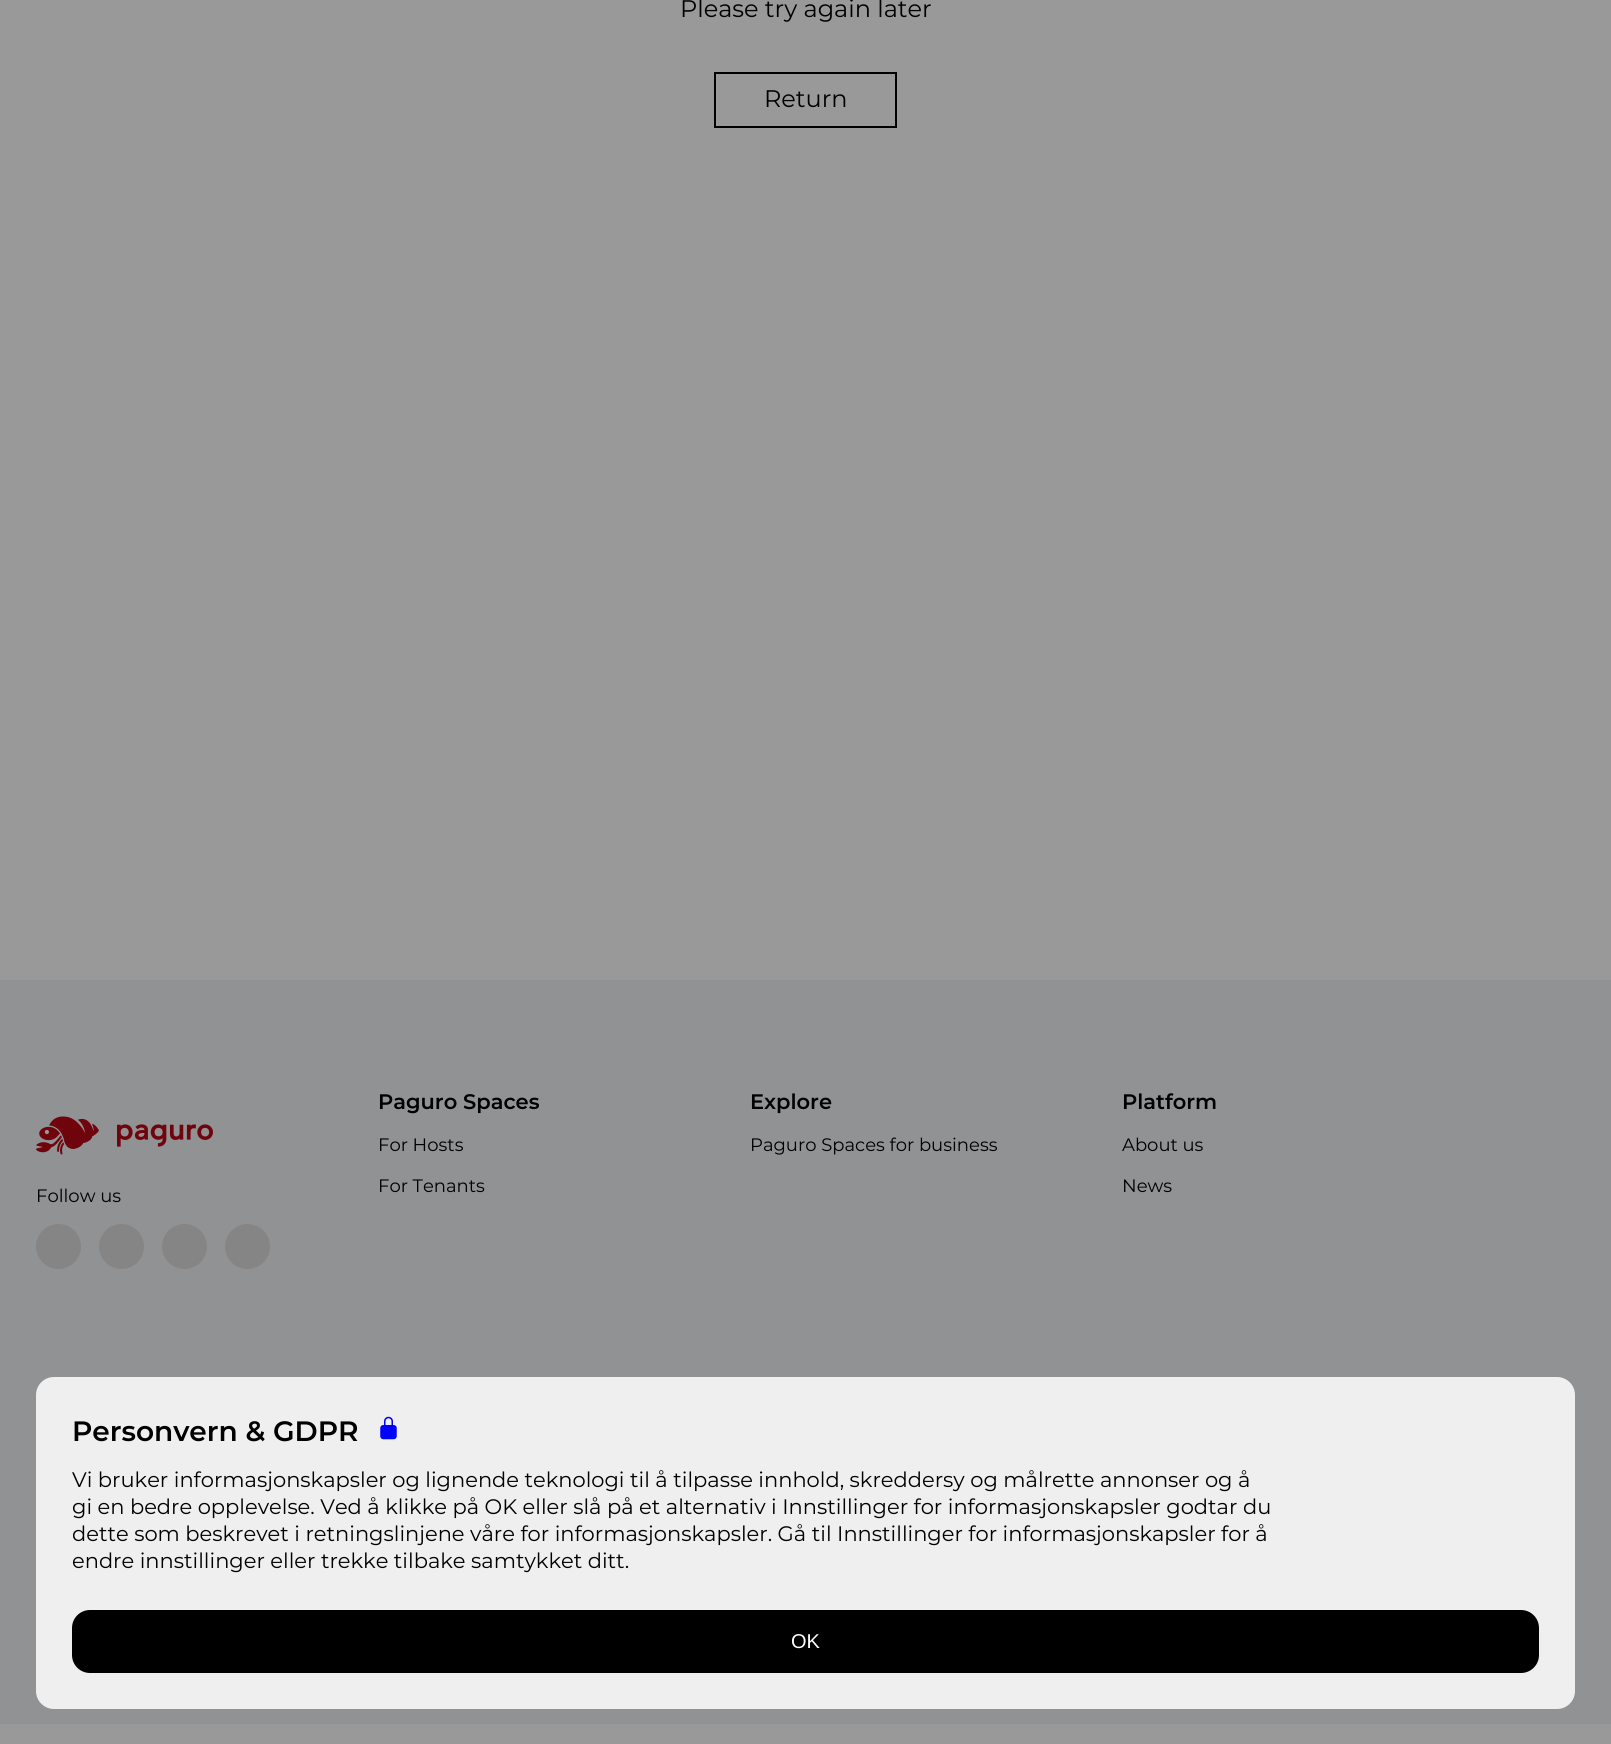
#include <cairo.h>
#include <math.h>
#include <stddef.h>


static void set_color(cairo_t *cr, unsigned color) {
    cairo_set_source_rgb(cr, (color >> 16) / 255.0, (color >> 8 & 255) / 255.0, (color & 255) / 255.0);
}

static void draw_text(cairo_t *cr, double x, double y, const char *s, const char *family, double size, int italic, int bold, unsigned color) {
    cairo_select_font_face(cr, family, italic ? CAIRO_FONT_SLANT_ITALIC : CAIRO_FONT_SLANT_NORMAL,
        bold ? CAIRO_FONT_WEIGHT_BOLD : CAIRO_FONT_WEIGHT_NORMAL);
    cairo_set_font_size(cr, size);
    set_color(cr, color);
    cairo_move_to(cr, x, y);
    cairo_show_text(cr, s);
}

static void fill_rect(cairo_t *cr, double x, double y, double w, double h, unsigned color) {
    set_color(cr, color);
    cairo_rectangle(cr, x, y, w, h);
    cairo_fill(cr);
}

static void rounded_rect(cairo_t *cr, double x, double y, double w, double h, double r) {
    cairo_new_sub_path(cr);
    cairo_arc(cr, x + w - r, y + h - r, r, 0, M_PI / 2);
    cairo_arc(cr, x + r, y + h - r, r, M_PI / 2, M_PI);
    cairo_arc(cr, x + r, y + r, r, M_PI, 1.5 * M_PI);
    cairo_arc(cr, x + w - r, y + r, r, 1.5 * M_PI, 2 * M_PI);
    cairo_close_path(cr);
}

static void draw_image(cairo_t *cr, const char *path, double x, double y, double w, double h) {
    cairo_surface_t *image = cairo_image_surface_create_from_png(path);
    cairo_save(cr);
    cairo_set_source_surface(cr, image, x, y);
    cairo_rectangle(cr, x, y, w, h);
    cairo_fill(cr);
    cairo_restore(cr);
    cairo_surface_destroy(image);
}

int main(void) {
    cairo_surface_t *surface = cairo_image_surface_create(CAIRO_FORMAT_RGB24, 1611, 1744);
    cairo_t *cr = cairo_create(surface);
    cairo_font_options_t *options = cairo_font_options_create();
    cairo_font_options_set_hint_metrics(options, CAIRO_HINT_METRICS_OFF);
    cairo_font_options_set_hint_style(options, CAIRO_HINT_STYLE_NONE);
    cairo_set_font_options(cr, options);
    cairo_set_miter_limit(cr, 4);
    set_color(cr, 0x999999);
    cairo_paint(cr);
    draw_text(cr, 680, 17, "Please try again later", "Montserrat", 24, 0, 0, 0x000000);
    cairo_rectangle(cr, 715, 73, 181, 54);
    cairo_stroke(cr);
    draw_text(cr, 764, 107, "Return", "Montserrat", 24, 0, 0, 0x000000);
    fill_rect(cr, 0, 980, 1611, 744, 0x919294);
    draw_text(cr, 378, 1109, "Paguro Spaces", "Montserrat SemiBold", 21, 0, 0, 0x000000);
    draw_text(cr, 378, 1151, "For Hosts", "Montserrat", 18, 0, 0, 0x000000);
    draw_text(cr, 378, 1192, "For Tenants", "Montserrat", 18, 0, 0, 0x000000);
    draw_text(cr, 750, 1109, "Explore", "Montserrat SemiBold", 21, 0, 0, 0x000000);
    draw_text(cr, 750, 1151, "Paguro Spaces for business", "Montserrat", 18, 0, 0, 0x000000);
    draw_text(cr, 1122, 1109, "Platform", "Montserrat SemiBold", 21, 0, 0, 0x000000);
    draw_text(cr, 1122, 1151, "About us", "Montserrat", 18, 0, 0, 0x000000);
    draw_text(cr, 1122, 1192, "News", "Montserrat", 18, 0, 0, 0x000000);
    draw_image(cr, "assets/img1.png", 36, 1116, 63, 39);
    draw_image(cr, "assets/img2.png", 117, 1124, 96, 23);
    draw_text(cr, 36, 1202, "Follow us", "Montserrat", 18, 0, 0, 0x000000);
    set_color(cr, 0x858585);
    cairo_new_path(cr);
    cairo_arc(cr, 58.5, 1246.5, 22.5, 0, 2 * M_PI);
    cairo_fill(cr);
    cairo_arc(cr, 121.5, 1246.5, 22.5, 0, 2 * M_PI);
    cairo_fill(cr);
    cairo_arc(cr, 184.5, 1246.5, 22.5, 0, 2 * M_PI);
    cairo_fill(cr);
    cairo_arc(cr, 247.5, 1246.5, 22.5, 0, 2 * M_PI);
    cairo_fill(cr);
    set_color(cr, 0xEFEFEF);
    rounded_rect(cr, 36, 1377, 1539, 332, 18);
    cairo_fill(cr);
    draw_text(cr, 72, 1441, "Personvern & GDPR", "Montserrat SemiBold", 28, 0, 0, 0x000000);
    draw_image(cr, "assets/img3.png", 380, 1416, 17, 24);
    draw_text(cr, 72, 1487, "Vi bruker informasjonskapsler og lignende teknologi til å tilpasse innhold, skreddersy og målrette annonser og å", "Montserrat", 21, 0, 0, 0x000000);
    draw_text(cr, 72, 1514, "gi en bedre opplevelse. Ved å klikke på OK eller slå på et alternativ i Innstillinger for informasjonskapsler godtar du", "Montserrat", 21, 0, 0, 0x000000);
    draw_text(cr, 72, 1541, "dette som beskrevet i retningslinjene våre for informasjonskapsler. Gå til Innstillinger for informasjonskapsler for å", "Montserrat", 21, 0, 0, 0x000000);
    draw_text(cr, 72, 1568, "endre innstillinger eller trekke tilbake samtykket ditt.", "Montserrat", 21, 0, 0, 0x000000);
    rounded_rect(cr, 72, 1610, 1467, 63, 18);
    cairo_fill(cr);
    draw_text(cr, 791, 1648, "OK", "Liberation Sans", 20, 0, 0, 0xFFFFFF);
    cairo_surface_write_to_png(surface, "output.png");
    cairo_font_options_destroy(options);
    cairo_destroy(cr);
    cairo_surface_destroy(surface);
    return 0;
}
